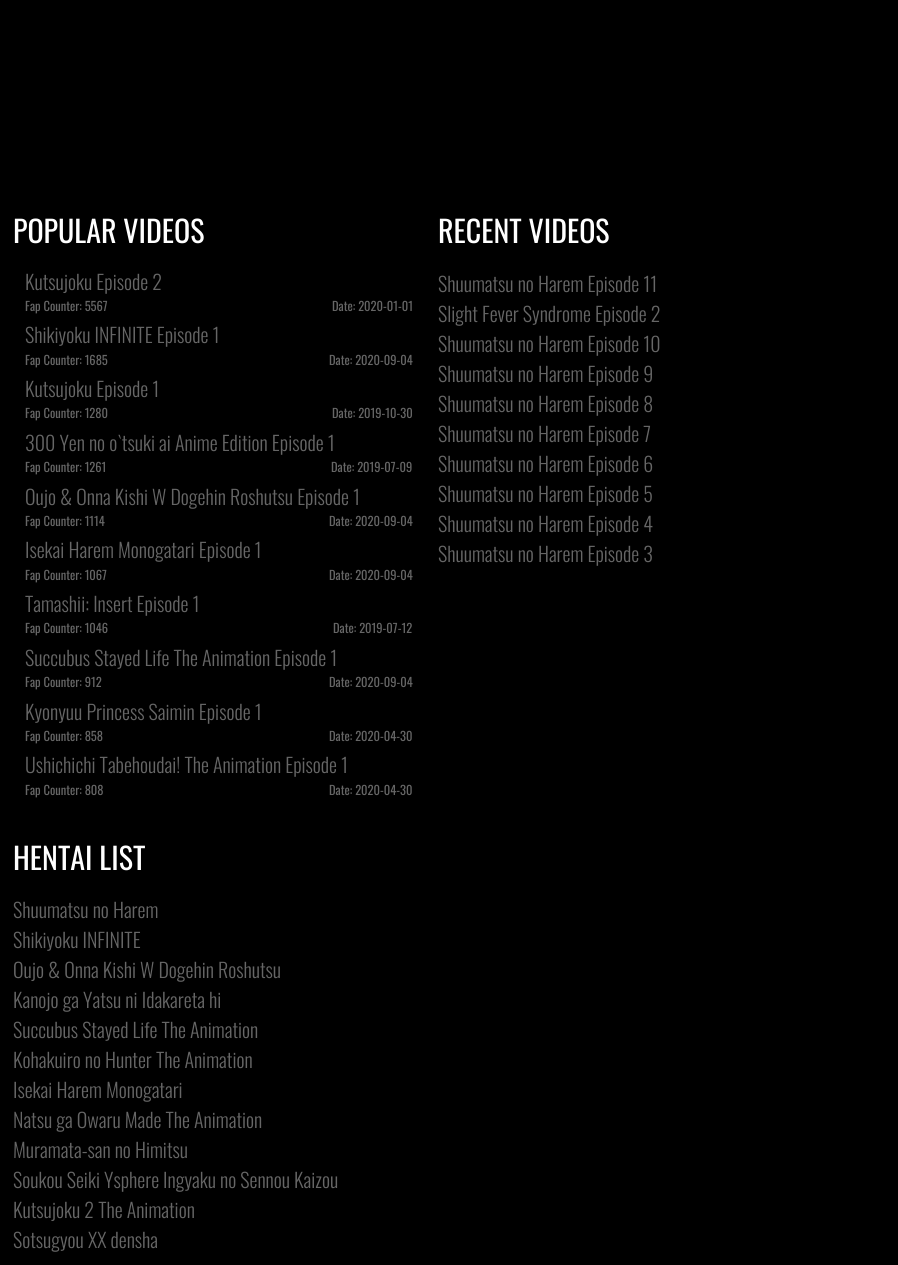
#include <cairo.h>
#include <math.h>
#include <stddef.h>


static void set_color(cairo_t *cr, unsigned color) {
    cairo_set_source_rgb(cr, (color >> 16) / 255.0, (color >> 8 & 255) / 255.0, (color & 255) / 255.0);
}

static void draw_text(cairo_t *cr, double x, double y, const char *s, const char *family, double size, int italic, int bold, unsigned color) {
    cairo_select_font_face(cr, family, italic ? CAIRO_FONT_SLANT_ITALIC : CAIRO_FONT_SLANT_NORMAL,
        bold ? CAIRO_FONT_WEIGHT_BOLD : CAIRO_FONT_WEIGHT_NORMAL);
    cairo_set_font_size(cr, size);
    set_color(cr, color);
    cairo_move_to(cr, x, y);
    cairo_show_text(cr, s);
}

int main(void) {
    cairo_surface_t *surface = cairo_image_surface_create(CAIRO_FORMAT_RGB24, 898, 1265);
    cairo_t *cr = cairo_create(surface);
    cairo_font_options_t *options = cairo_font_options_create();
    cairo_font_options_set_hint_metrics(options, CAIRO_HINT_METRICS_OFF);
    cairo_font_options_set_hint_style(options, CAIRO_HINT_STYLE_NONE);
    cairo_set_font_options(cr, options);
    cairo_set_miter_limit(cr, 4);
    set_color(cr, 0x000000);
    cairo_paint(cr);
    draw_text(cr, 13, 243, "POPULAR VIDEOS", "Oswald", 30, 0, 0, 0xFFFFFF);
    draw_text(cr, 25, 290, "Kutsujoku Episode 2", "Oswald Light", 20, 0, 0, 0x666666);
    draw_text(cr, 25, 311, "Fap Counter: 5567", "Oswald", 12.5, 0, 0, 0x666666);
    draw_text(cr, 332, 311, "Date: 2020-01-01", "Oswald", 12.5, 0, 0, 0x666666);
    draw_text(cr, 25, 343, "Shikiyoku INFINITE Episode 1", "Oswald Light", 20, 0, 0, 0x666666);
    draw_text(cr, 25, 365, "Fap Counter: 1685", "Oswald", 12.5, 0, 0, 0x666666);
    draw_text(cr, 329, 365, "Date: 2020-09-04", "Oswald", 12.5, 0, 0, 0x666666);
    draw_text(cr, 25, 397, "Kutsujoku Episode 1", "Oswald Light", 20, 0, 0, 0x666666);
    draw_text(cr, 25, 418, "Fap Counter: 1280", "Oswald", 12.5, 0, 0, 0x666666);
    draw_text(cr, 332, 418, "Date: 2019-10-30", "Oswald", 12.5, 0, 0, 0x666666);
    draw_text(cr, 25, 451, "300 Yen no o`tsuki ai Anime Edition Episode 1", "Oswald Light", 20, 0, 0, 0x666666);
    draw_text(cr, 25, 472, "Fap Counter: 1261", "Oswald", 12.5, 0, 0, 0x666666);
    draw_text(cr, 331, 472, "Date: 2019-07-09", "Oswald", 12.5, 0, 0, 0x666666);
    draw_text(cr, 25, 505, "Oujo & Onna Kishi W Dogehin Roshutsu Episode 1", "Oswald Light", 20, 0, 0, 0x666666);
    draw_text(cr, 25, 526, "Fap Counter: 1114", "Oswald", 12.5, 0, 0, 0x666666);
    draw_text(cr, 329, 526, "Date: 2020-09-04", "Oswald", 12.5, 0, 0, 0x666666);
    draw_text(cr, 25, 558, "Isekai Harem Monogatari Episode 1", "Oswald Light", 20, 0, 0, 0x666666);
    draw_text(cr, 25, 580, "Fap Counter: 1067", "Oswald", 12.5, 0, 0, 0x666666);
    draw_text(cr, 329, 580, "Date: 2020-09-04", "Oswald", 12.5, 0, 0, 0x666666);
    draw_text(cr, 25, 612, "Tamashii: Insert Episode 1", "Oswald Light", 20, 0, 0, 0x666666);
    draw_text(cr, 25, 633, "Fap Counter: 1046", "Oswald", 12.5, 0, 0, 0x666666);
    draw_text(cr, 333, 633, "Date: 2019-07-12", "Oswald", 12.5, 0, 0, 0x666666);
    draw_text(cr, 25, 666, "Succubus Stayed Life The Animation Episode 1", "Oswald Light", 20, 0, 0, 0x666666);
    draw_text(cr, 25, 687, "Fap Counter: 912", "Oswald", 12.5, 0, 0, 0x666666);
    draw_text(cr, 329, 687, "Date: 2020-09-04", "Oswald", 12.5, 0, 0, 0x666666);
    draw_text(cr, 25, 720, "Kyonyuu Princess Saimin Episode 1", "Oswald Light", 20, 0, 0, 0x666666);
    draw_text(cr, 25, 741, "Fap Counter: 858", "Oswald", 12.5, 0, 0, 0x666666);
    draw_text(cr, 329, 741, "Date: 2020-04-30", "Oswald", 12.5, 0, 0, 0x666666);
    draw_text(cr, 25, 773, "Ushichichi Tabehoudai! The Animation Episode 1", "Oswald Light", 20, 0, 0, 0x666666);
    draw_text(cr, 25, 795, "Fap Counter: 808", "Oswald", 12.5, 0, 0, 0x666666);
    draw_text(cr, 329, 795, "Date: 2020-04-30", "Oswald", 12.5, 0, 0, 0x666666);
    draw_text(cr, 438, 243, "RECENT VIDEOS", "Oswald", 30, 0, 0, 0xFFFFFF);
    draw_text(cr, 438, 292, "Shuumatsu no Harem Episode 11", "Oswald Light", 20, 0, 0, 0x666666);
    draw_text(cr, 438, 322, "Slight Fever Syndrome Episode 2", "Oswald Light", 20, 0, 0, 0x666666);
    draw_text(cr, 438, 352, "Shuumatsu no Harem Episode 10", "Oswald Light", 20, 0, 0, 0x666666);
    draw_text(cr, 438, 382, "Shuumatsu no Harem Episode 9", "Oswald Light", 20, 0, 0, 0x666666);
    draw_text(cr, 438, 412, "Shuumatsu no Harem Episode 8", "Oswald Light", 20, 0, 0, 0x666666);
    draw_text(cr, 438, 442, "Shuumatsu no Harem Episode 7", "Oswald Light", 20, 0, 0, 0x666666);
    draw_text(cr, 438, 472, "Shuumatsu no Harem Episode 6", "Oswald Light", 20, 0, 0, 0x666666);
    draw_text(cr, 438, 502, "Shuumatsu no Harem Episode 5", "Oswald Light", 20, 0, 0, 0x666666);
    draw_text(cr, 438, 532, "Shuumatsu no Harem Episode 4", "Oswald Light", 20, 0, 0, 0x666666);
    draw_text(cr, 438, 562, "Shuumatsu no Harem Episode 3", "Oswald Light", 20, 0, 0, 0x666666);
    draw_text(cr, 13, 870, "HENTAI LIST", "Oswald", 30, 0, 0, 0xFFFFFF);
    draw_text(cr, 13, 918, "Shuumatsu no Harem", "Oswald Light", 20, 0, 0, 0x666666);
    draw_text(cr, 13, 948, "Shikiyoku INFINITE", "Oswald Light", 20, 0, 0, 0x666666);
    draw_text(cr, 13, 978, "Oujo & Onna Kishi W Dogehin Roshutsu", "Oswald Light", 20, 0, 0, 0x666666);
    draw_text(cr, 13, 1008, "Kanojo ga Yatsu ni Idakareta hi", "Oswald Light", 20, 0, 0, 0x666666);
    draw_text(cr, 13, 1038, "Succubus Stayed Life The Animation", "Oswald Light", 20, 0, 0, 0x666666);
    draw_text(cr, 13, 1068, "Kohakuiro no Hunter The Animation", "Oswald Light", 20, 0, 0, 0x666666);
    draw_text(cr, 13, 1098, "Isekai Harem Monogatari", "Oswald Light", 20, 0, 0, 0x666666);
    draw_text(cr, 13, 1128, "Natsu ga Owaru Made The Animation", "Oswald Light", 20, 0, 0, 0x666666);
    draw_text(cr, 13, 1158, "Muramata-san no Himitsu", "Oswald Light", 20, 0, 0, 0x666666);
    draw_text(cr, 13, 1188, "Soukou Seiki Ysphere Ingyaku no Sennou Kaizou", "Oswald Light", 20, 0, 0, 0x666666);
    draw_text(cr, 13, 1218, "Kutsujoku 2 The Animation", "Oswald Light", 20, 0, 0, 0x666666);
    draw_text(cr, 13, 1248, "Sotsugyou XX densha", "Oswald Light", 20, 0, 0, 0x666666);
    cairo_surface_write_to_png(surface, "output.png");
    cairo_font_options_destroy(options);
    cairo_destroy(cr);
    cairo_surface_destroy(surface);
    return 0;
}
